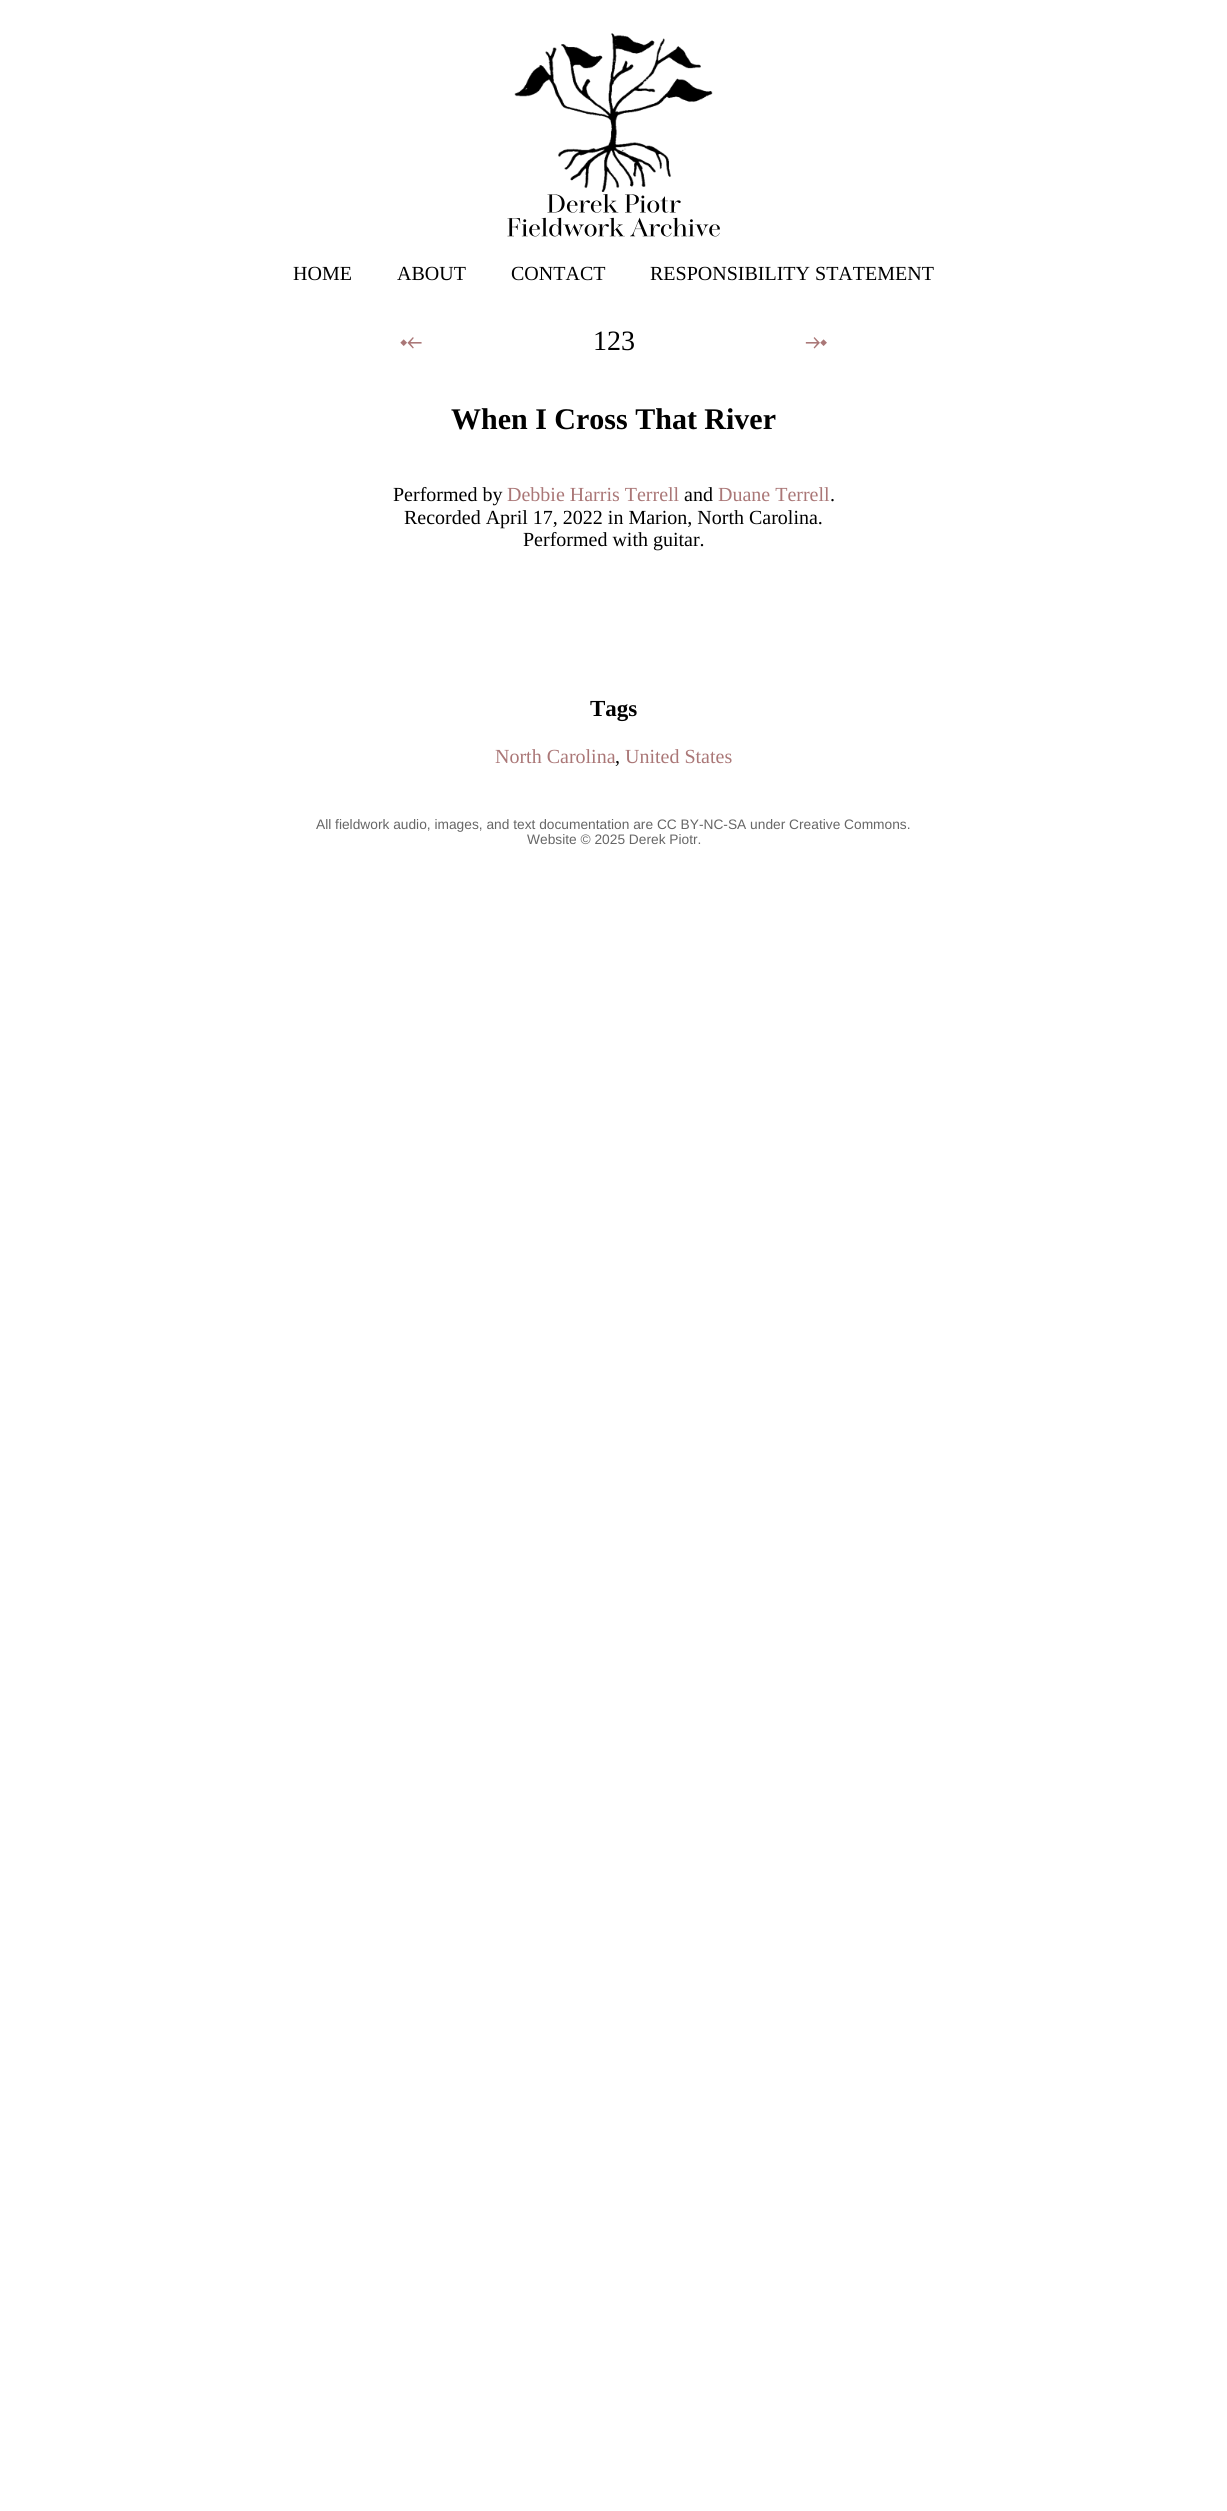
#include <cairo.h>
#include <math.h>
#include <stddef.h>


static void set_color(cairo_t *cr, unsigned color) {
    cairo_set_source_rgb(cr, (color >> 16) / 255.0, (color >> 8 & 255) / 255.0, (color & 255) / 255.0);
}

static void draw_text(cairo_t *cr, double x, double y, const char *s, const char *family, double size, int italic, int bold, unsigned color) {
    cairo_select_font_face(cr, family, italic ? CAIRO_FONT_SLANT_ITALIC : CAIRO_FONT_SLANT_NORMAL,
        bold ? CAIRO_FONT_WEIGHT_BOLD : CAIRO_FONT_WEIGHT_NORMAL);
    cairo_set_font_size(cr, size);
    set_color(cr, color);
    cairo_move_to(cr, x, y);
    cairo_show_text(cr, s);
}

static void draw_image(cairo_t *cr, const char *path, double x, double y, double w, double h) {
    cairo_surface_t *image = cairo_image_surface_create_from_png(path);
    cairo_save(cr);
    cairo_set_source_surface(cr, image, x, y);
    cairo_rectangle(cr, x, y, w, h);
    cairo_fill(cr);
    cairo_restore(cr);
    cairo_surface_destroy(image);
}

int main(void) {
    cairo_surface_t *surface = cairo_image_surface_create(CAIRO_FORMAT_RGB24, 1227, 2511);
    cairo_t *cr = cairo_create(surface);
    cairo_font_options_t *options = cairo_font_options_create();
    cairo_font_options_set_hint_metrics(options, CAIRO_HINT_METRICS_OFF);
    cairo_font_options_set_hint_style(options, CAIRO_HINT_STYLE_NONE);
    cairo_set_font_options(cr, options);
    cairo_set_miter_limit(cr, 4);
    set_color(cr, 0xFFFFFF);
    cairo_paint(cr);
    draw_image(cr, "assets/img1.png", 514, 33, 199, 159);
    draw_image(cr, "assets/img2.png", 547, 194, 134, 19);
    draw_image(cr, "assets/img3.png", 507, 217, 213, 20);
    draw_text(cr, 293, 280, "HOME", "Liberation Serif", 20, 0, 0, 0x000000);
    draw_text(cr, 397, 280, "ABOUT", "Liberation Serif", 20, 0, 0, 0x000000);
    draw_text(cr, 511, 280, "CONTACT", "Liberation Serif", 20, 0, 0, 0x000000);
    draw_text(cr, 650, 280, "RESPONSIBILITY STATEMENT", "Liberation Serif", 20, 0, 0, 0x000000);
    draw_text(cr, 400, 350, "⤝", "FreeSerif", 28, 0, 0, 0xAA7777);
    draw_text(cr, 593, 350, "123", "Liberation Serif", 28, 0, 0, 0x000000);
    draw_text(cr, 805, 350, "⤞", "FreeSerif", 28, 0, 0, 0xAA7777);
    draw_text(cr, 451, 429, "When I Cross That River", "Liberation Serif", 30, 0, 1, 0x000000);
    draw_text(cr, 393, 501, "Performed by", "Liberation Serif", 20, 0, 0, 0x000000);
    draw_text(cr, 507, 501, "Debbie Harris Terrell", "Liberation Serif", 20, 0, 0, 0xAA7777);
    draw_text(cr, 684, 501, "and", "Liberation Serif", 20, 0, 0, 0x000000);
    draw_text(cr, 718, 501, "Duane Terrell", "Liberation Serif", 20, 0, 0, 0xAA7777);
    draw_text(cr, 830, 501, ".", "Liberation Serif", 20, 0, 0, 0x000000);
    draw_text(cr, 404, 524, "Recorded April 17, 2022 in Marion, North Carolina.", "Liberation Serif", 20, 0, 0, 0x000000);
    draw_text(cr, 523, 546, "Performed with guitar.", "Liberation Serif", 20, 0, 0, 0x000000);
    draw_text(cr, 590, 716, "Tags", "Liberation Serif", 23, 0, 1, 0x000000);
    draw_text(cr, 495, 763, "North Carolina", "Liberation Serif", 20, 0, 0, 0xAA7777);
    draw_text(cr, 615, 763, ",", "Liberation Serif", 20, 0, 0, 0x000000);
    draw_text(cr, 625, 763, "United States", "Liberation Serif", 20, 0, 0, 0xAA7777);
    draw_text(cr, 316, 829, "All fieldwork audio, images, and text documentation are CC BY-NC-SA under Creative Commons.", "Liberation Sans", 13.75, 0, 0, 0x666666);
    draw_text(cr, 527, 844, "Website © 2025 Derek Piotr.", "Liberation Sans", 13.75, 0, 0, 0x666666);
    cairo_surface_write_to_png(surface, "output.png");
    cairo_font_options_destroy(options);
    cairo_destroy(cr);
    cairo_surface_destroy(surface);
    return 0;
}
